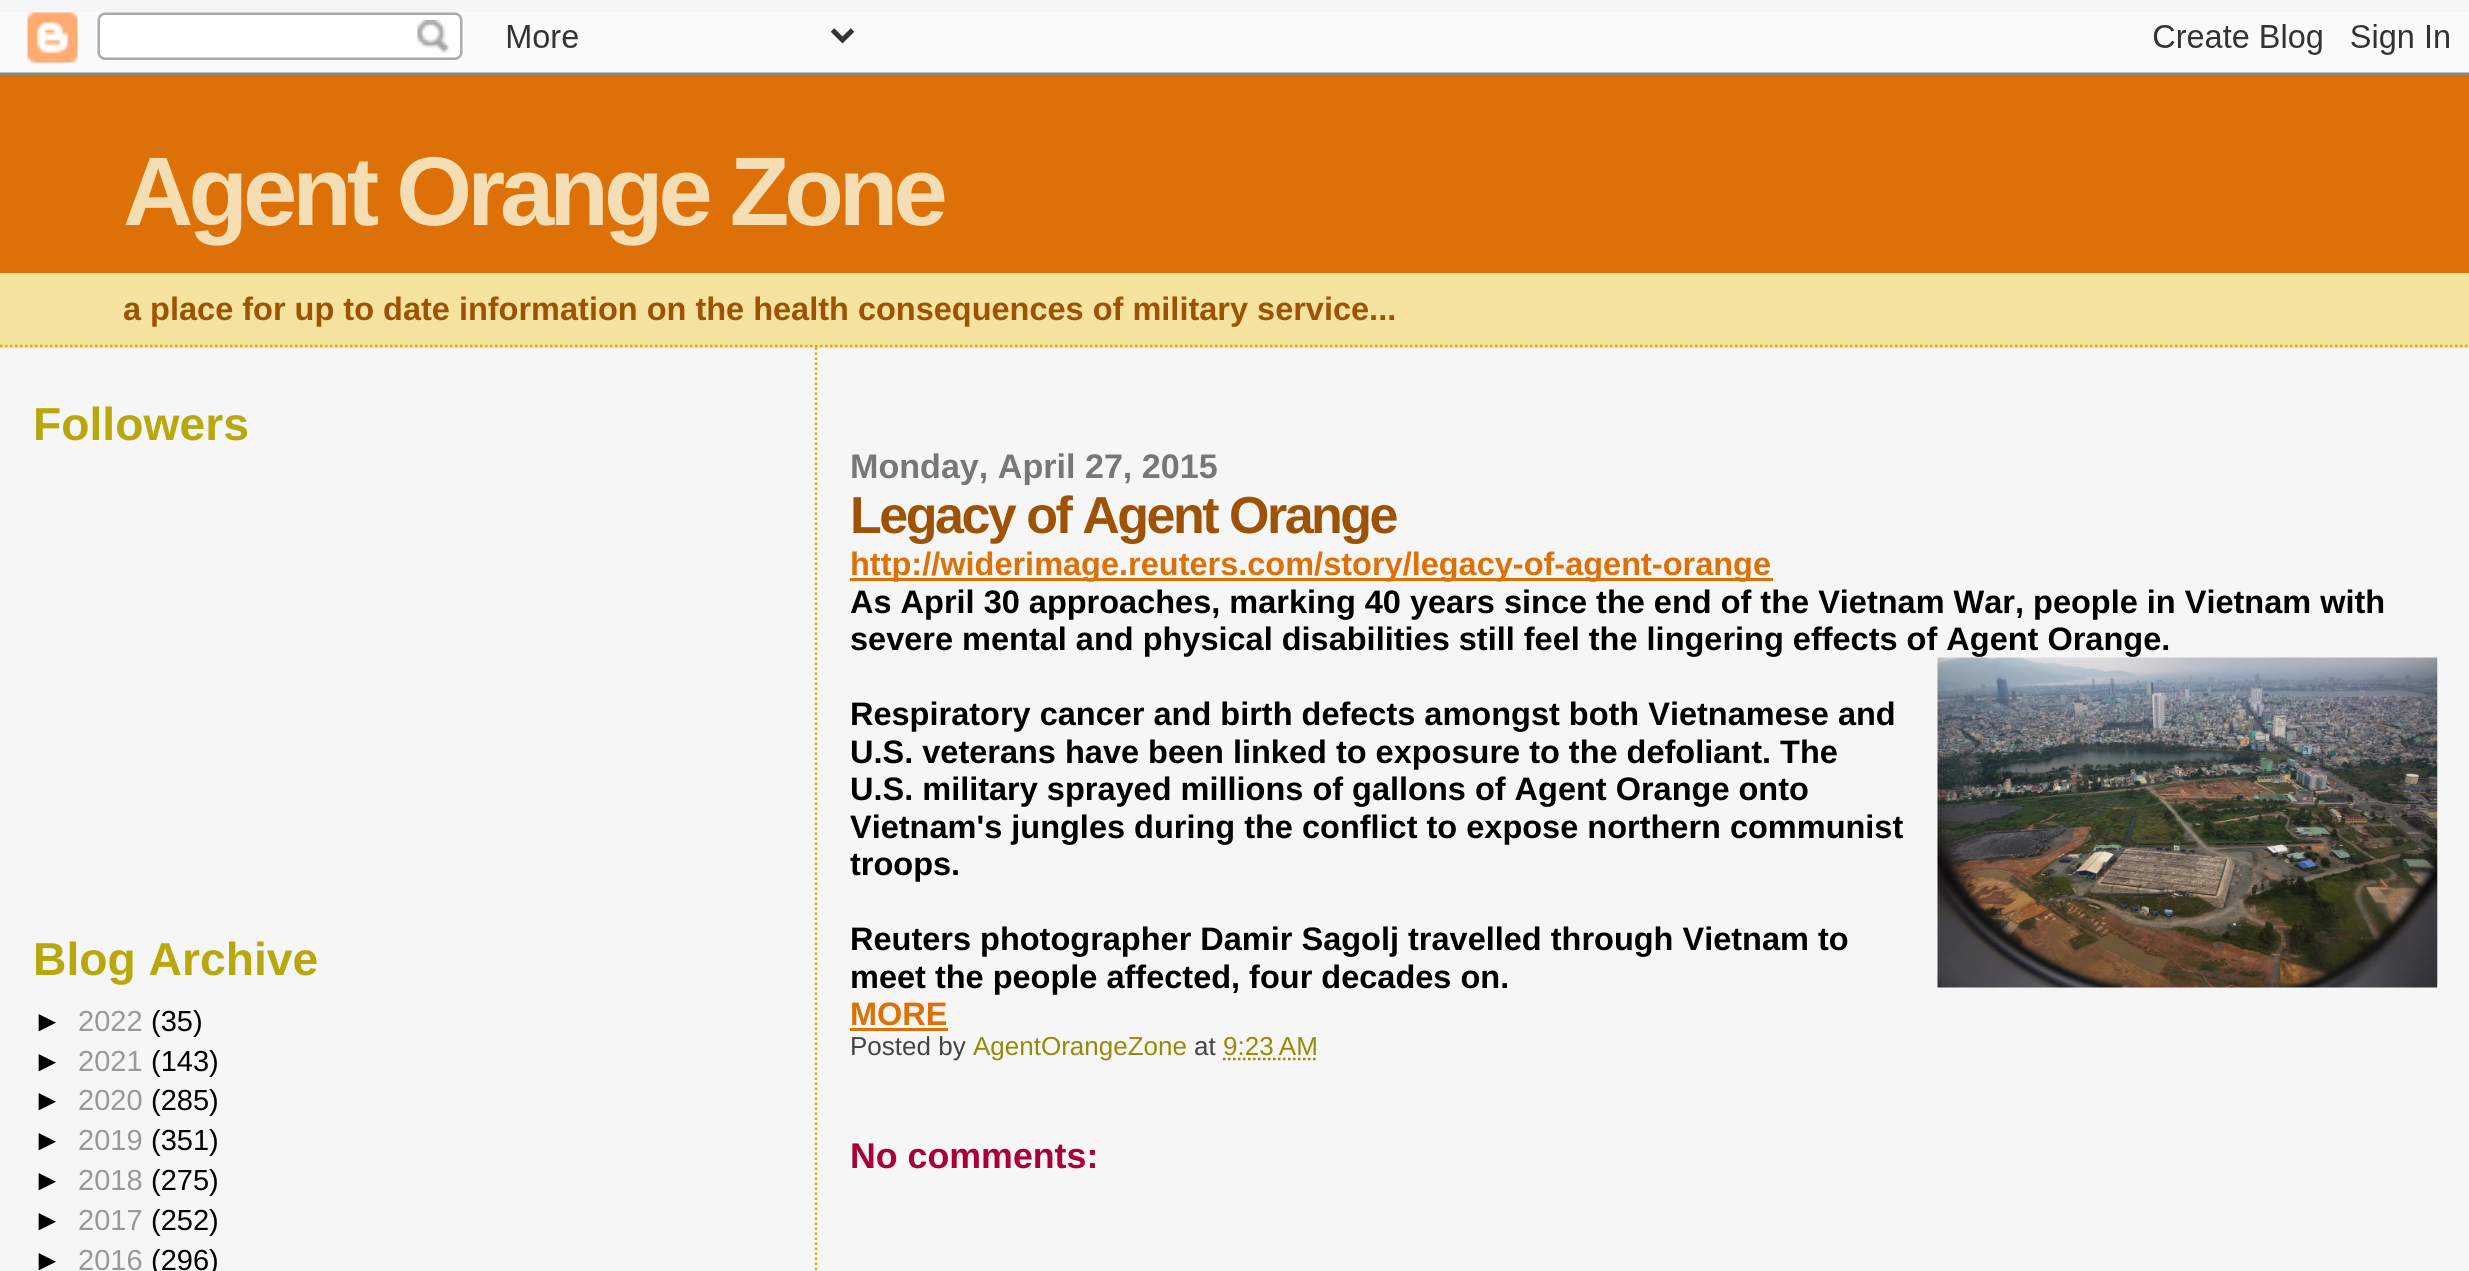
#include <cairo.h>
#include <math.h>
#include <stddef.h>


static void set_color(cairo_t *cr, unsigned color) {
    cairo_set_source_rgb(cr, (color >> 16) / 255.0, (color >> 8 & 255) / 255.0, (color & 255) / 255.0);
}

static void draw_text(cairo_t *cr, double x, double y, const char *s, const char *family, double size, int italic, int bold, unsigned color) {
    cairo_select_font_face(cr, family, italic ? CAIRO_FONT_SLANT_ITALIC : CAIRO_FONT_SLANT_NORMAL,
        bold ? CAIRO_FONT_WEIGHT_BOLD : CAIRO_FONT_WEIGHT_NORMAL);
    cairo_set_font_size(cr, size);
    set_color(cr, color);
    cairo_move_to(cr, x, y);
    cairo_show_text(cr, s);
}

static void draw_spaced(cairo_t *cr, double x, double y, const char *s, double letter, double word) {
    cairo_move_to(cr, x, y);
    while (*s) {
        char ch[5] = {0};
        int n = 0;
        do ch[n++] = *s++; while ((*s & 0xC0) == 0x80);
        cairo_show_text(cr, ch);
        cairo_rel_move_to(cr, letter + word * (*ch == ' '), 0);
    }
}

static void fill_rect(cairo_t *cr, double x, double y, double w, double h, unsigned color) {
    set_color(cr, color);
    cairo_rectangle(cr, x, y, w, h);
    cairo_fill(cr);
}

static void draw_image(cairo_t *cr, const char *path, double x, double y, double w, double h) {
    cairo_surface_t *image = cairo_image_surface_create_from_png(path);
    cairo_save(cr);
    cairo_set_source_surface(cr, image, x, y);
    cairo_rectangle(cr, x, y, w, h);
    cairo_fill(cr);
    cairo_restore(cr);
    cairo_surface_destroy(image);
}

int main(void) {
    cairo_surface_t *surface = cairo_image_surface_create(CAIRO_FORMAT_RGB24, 2469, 1271);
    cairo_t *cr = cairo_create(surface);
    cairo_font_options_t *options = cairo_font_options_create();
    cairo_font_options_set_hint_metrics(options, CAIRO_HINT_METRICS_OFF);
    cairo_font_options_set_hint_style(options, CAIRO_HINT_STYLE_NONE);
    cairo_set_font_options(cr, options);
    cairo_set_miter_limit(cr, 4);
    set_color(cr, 0xF6F6F6);
    cairo_paint(cr);
    draw_image(cr, "assets/img1.png", 0, 12, 2469, 63);
    fill_rect(cr, 0, 273, 2469, 75, 0xF5E39E);
    cairo_new_path(cr);
    cairo_move_to(cr, 0, 346);
    cairo_line_to(cr, 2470, 346);
    set_color(cr, 0xE0AD12);
    cairo_set_line_width(cr, 2.5);
    cairo_set_dash(cr, (double[]){2.5, 2.5}, 2, 0);
    cairo_stroke(cr);
    fill_rect(cr, 0, 75, 2469, 198, 0xDE7008);
    cairo_select_font_face(cr, "Liberation Sans", CAIRO_FONT_SLANT_NORMAL, CAIRO_FONT_WEIGHT_BOLD);
    cairo_set_font_size(cr, 97.5);
    set_color(cr, 0xF5DEB3);
    draw_spaced(cr, 123, 225, "Agent Orange Zone", -5, 0);
    draw_text(cr, 123, 320, "a place for up to date information on the health consequences of military service...", "Liberation Sans", 32.5, 0, 1, 0x9E5205);
    draw_text(cr, 33, 440, "Followers", "Liberation Sans", 46.25, 0, 1, 0xB8A80D);
    draw_text(cr, 33, 975, "Blog Archive", "Liberation Sans", 46.25, 0, 1, 0xB8A80D);
    draw_text(cr, 33, 1031, "►", "Liberation Sans", 29, 0, 0, 0x000000);
    draw_text(cr, 78, 1031, "2022", "Liberation Sans", 29, 0, 0, 0x999999);
    draw_text(cr, 151, 1031, "(35)", "Liberation Sans", 29, 0, 0, 0x000000);
    draw_text(cr, 33, 1071, "►", "Liberation Sans", 29, 0, 0, 0x000000);
    draw_text(cr, 78, 1071, "2021", "Liberation Sans", 29, 0, 0, 0x999999);
    draw_text(cr, 151, 1071, "(143)", "Liberation Sans", 29, 0, 0, 0x000000);
    draw_text(cr, 33, 1110, "►", "Liberation Sans", 29, 0, 0, 0x000000);
    draw_text(cr, 78, 1110, "2020", "Liberation Sans", 29, 0, 0, 0x999999);
    draw_text(cr, 151, 1110, "(285)", "Liberation Sans", 29, 0, 0, 0x000000);
    draw_text(cr, 33, 1150, "►", "Liberation Sans", 29, 0, 0, 0x000000);
    draw_text(cr, 78, 1150, "2019", "Liberation Sans", 29, 0, 0, 0x999999);
    draw_text(cr, 151, 1150, "(351)", "Liberation Sans", 29, 0, 0, 0x000000);
    draw_text(cr, 33, 1190, "►", "Liberation Sans", 29, 0, 0, 0x000000);
    draw_text(cr, 78, 1190, "2018", "Liberation Sans", 29, 0, 0, 0x999999);
    draw_text(cr, 151, 1190, "(275)", "Liberation Sans", 29, 0, 0, 0x000000);
    draw_text(cr, 33, 1230, "►", "Liberation Sans", 29, 0, 0, 0x000000);
    draw_text(cr, 78, 1230, "2017", "Liberation Sans", 29, 0, 0, 0x999999);
    draw_text(cr, 151, 1230, "(252)", "Liberation Sans", 29, 0, 0, 0x000000);
    draw_text(cr, 33, 1270, "►", "Liberation Sans", 29, 0, 0, 0x000000);
    draw_text(cr, 78, 1270, "2016", "Liberation Sans", 29, 0, 0, 0x999999);
    draw_text(cr, 151, 1270, "(296)", "Liberation Sans", 29, 0, 0, 0x000000);
    cairo_new_path(cr);
    cairo_move_to(cr, 816, 347.5);
    cairo_line_to(cr, 816, 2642.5);
    set_color(cr, 0xE0AD12);
    cairo_stroke(cr);
    draw_text(cr, 850, 478, "Monday, April 27, 2015", "Liberation Sans", 34.1, 0, 1, 0x777777);
    cairo_set_font_size(cr, 52);
    set_color(cr, 0x9E5205);
    draw_spaced(cr, 850, 533, "Legacy of Agent Orange", -2.5, 0);
    fill_rect(cr, 850, 578, 923, 3, 0xDE7008);
    draw_text(cr, 850, 575, "http://widerimage.reuters.com/story/legacy-of-agent-orange", "Liberation Sans", 32.5, 0, 1, 0xDE7008);
    draw_text(cr, 850, 613, "As April 30 approaches, marking 40 years since the end of the Vietnam War, people in Vietnam with", "Liberation Sans", 32.5, 0, 1, 0x000000);
    draw_text(cr, 850, 650, "severe mental and physical disabilities still feel the lingering effects of Agent Orange.", "Liberation Sans", 32.5, 0, 1, 0x000000);
    draw_text(cr, 850, 725, "Respiratory cancer and birth defects amongst both Vietnamese and", "Liberation Sans", 32.5, 0, 1, 0x000000);
    draw_text(cr, 850, 763, "U.S. veterans have been linked to exposure to the defoliant. The", "Liberation Sans", 32.5, 0, 1, 0x000000);
    draw_text(cr, 850, 800, "U.S. military sprayed millions of gallons of Agent Orange onto", "Liberation Sans", 32.5, 0, 1, 0x000000);
    draw_text(cr, 850, 838, "Vietnam's jungles during the conflict to expose northern communist", "Liberation Sans", 32.5, 0, 1, 0x000000);
    draw_text(cr, 850, 875, "troops.", "Liberation Sans", 32.5, 0, 1, 0x000000);
    draw_image(cr, "assets/img2.png", 1937, 657, 501, 331);
    draw_text(cr, 850, 950, "Reuters photographer Damir Sagolj travelled through Vietnam to", "Liberation Sans", 32.5, 0, 1, 0x000000);
    draw_text(cr, 850, 988, "meet the people affected, four decades on.", "Liberation Sans", 32.5, 0, 1, 0x000000);
    draw_text(cr, 850, 1025, "MORE", "Liberation Sans", 32.5, 0, 1, 0xDE7008);
    fill_rect(cr, 850, 1028, 98, 3, 0xDE7008);
    draw_text(cr, 850, 1055, "Posted by", "Liberation Sans", 26, 0, 0, 0x444444);
    draw_text(cr, 973, 1055, "AgentOrangeZone", "Liberation Sans", 26, 0, 0, 0x968A0A);
    draw_text(cr, 1194, 1055, "at", "Liberation Sans", 26, 0, 0, 0x444444);
    draw_text(cr, 1223, 1055, "9:23 AM", "Liberation Sans", 26, 0, 0, 0x968A0A);
    cairo_new_path(cr);
    cairo_move_to(cr, 1223, 1059);
    cairo_line_to(cr, 1317.5, 1059);
    cairo_stroke(cr);
    draw_text(cr, 850, 1168, "No comments:", "Liberation Sans", 35.75, 0, 1, 0xAA0033);
    cairo_surface_write_to_png(surface, "output.png");
    cairo_font_options_destroy(options);
    cairo_destroy(cr);
    cairo_surface_destroy(surface);
    return 0;
}
